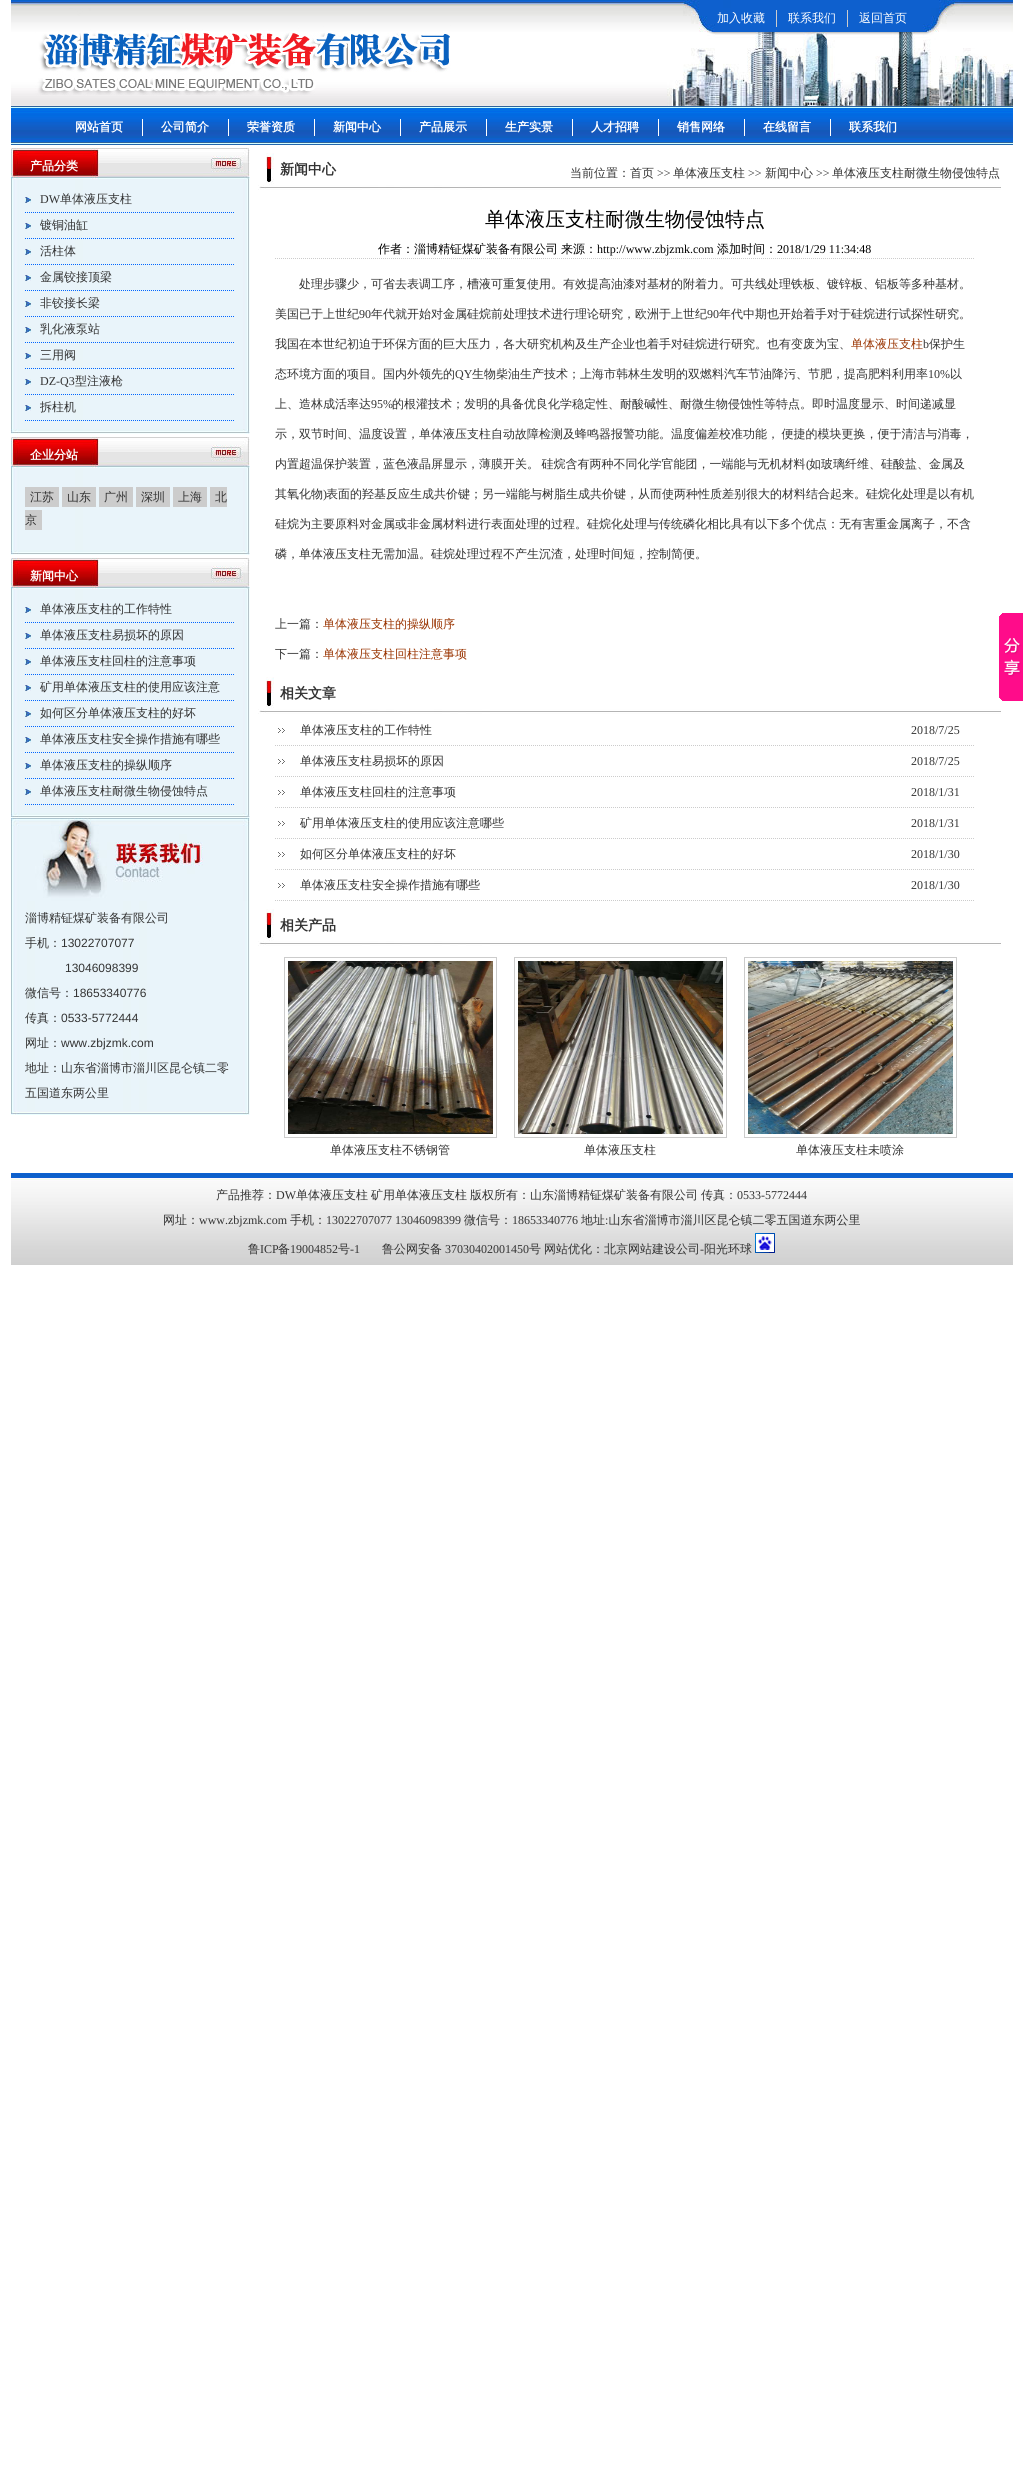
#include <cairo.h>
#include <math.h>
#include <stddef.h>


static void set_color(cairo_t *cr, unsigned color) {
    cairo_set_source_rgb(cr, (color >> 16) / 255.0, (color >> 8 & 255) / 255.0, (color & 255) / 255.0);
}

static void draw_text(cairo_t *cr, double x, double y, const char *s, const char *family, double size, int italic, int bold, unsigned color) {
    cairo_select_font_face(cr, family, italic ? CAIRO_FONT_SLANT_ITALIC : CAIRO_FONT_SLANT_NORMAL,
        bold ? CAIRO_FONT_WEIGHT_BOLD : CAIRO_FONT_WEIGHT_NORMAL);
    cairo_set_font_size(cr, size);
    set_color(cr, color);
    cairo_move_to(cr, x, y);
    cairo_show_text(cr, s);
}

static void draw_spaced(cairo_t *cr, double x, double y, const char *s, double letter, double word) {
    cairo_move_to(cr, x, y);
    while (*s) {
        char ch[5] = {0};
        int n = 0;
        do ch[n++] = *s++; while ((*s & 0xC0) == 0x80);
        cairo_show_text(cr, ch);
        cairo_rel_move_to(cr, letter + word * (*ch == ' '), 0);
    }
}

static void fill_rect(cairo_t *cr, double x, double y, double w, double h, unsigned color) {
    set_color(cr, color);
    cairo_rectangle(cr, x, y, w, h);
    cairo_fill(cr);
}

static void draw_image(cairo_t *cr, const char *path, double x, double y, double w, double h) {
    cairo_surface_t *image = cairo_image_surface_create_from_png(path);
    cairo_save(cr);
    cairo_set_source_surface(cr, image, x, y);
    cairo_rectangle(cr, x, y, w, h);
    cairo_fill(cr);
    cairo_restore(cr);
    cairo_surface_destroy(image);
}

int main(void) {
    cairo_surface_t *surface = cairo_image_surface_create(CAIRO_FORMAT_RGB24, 1023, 2478);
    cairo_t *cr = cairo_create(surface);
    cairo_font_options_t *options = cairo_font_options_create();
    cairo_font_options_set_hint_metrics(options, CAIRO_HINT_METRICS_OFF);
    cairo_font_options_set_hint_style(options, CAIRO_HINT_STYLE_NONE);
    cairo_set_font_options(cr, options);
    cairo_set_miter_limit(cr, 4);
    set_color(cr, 0xFFFFFF);
    cairo_paint(cr);
    draw_image(cr, "assets/img1.png", 11, 0, 1002, 106);
    fill_rect(cr, 776, 10, 1, 17, 0xCCCCCC);
    draw_text(cr, 717, 22, "加入收藏", "WenQuanYi Zen Hei Medium", 12, 0, 0, 0xFFFFFF);
    fill_rect(cr, 847, 10, 1, 17, 0xCCCCCC);
    draw_text(cr, 788, 22, "联系我们", "WenQuanYi Zen Hei Medium", 12, 0, 0, 0xFFFFFF);
    draw_text(cr, 859, 22, "返回首页", "WenQuanYi Zen Hei Medium", 12, 0, 0, 0xFFFFFF);
    draw_image(cr, "assets/img2.png", 11, 106, 1002, 39);
    fill_rect(cr, 142, 119, 1, 17, 0xFFFFFF);
    draw_text(cr, 75, 131, "网站首页", "WenQuanYi Zen Hei", 12, 0, 1, 0xFFFFFF);
    fill_rect(cr, 228, 119, 1, 17, 0xFFFFFF);
    draw_text(cr, 161, 131, "公司简介", "WenQuanYi Zen Hei", 12, 0, 1, 0xFFFFFF);
    fill_rect(cr, 314, 119, 1, 17, 0xFFFFFF);
    draw_text(cr, 247, 131, "荣誉资质", "WenQuanYi Zen Hei", 12, 0, 1, 0xFFFFFF);
    fill_rect(cr, 400, 119, 1, 17, 0xFFFFFF);
    draw_text(cr, 333, 131, "新闻中心", "WenQuanYi Zen Hei", 12, 0, 1, 0xFFFFFF);
    fill_rect(cr, 486, 119, 1, 17, 0xFFFFFF);
    draw_text(cr, 419, 131, "产品展示", "WenQuanYi Zen Hei", 12, 0, 1, 0xFFFFFF);
    fill_rect(cr, 572, 119, 1, 17, 0xFFFFFF);
    draw_text(cr, 505, 131, "生产实景", "WenQuanYi Zen Hei", 12, 0, 1, 0xFFFFFF);
    fill_rect(cr, 658, 119, 1, 17, 0xFFFFFF);
    draw_text(cr, 591, 131, "人才招聘", "WenQuanYi Zen Hei", 12, 0, 1, 0xFFFFFF);
    fill_rect(cr, 744, 119, 1, 17, 0xFFFFFF);
    draw_text(cr, 677, 131, "销售网络", "WenQuanYi Zen Hei", 12, 0, 1, 0xFFFFFF);
    fill_rect(cr, 830, 119, 1, 17, 0xFFFFFF);
    draw_text(cr, 763, 131, "在线留言", "WenQuanYi Zen Hei", 12, 0, 1, 0xFFFFFF);
    draw_text(cr, 849, 131, "联系我们", "WenQuanYi Zen Hei", 12, 0, 1, 0xFFFFFF);
    draw_image(cr, "assets/img3.png", 11, 148, 239, 31);
    draw_text(cr, 30, 170, "产品分类", "WenQuanYi Zen Hei", 12, 0, 1, 0xFFFFFF);
    draw_image(cr, "assets/img4.png", 11, 179, 239, 250);
    draw_image(cr, "assets/img5.png", 25, 197, 6, 6);
    cairo_new_path(cr);
    cairo_move_to(cr, 25, 212.5);
    cairo_line_to(cr, 235, 212.5);
    set_color(cr, 0x0066FF);
    cairo_set_line_width(cr, 1);
    cairo_set_dash(cr, (double[]){1, 1}, 2, 0);
    cairo_stroke(cr);
    draw_text(cr, 40, 203, "DW", "Liberation Serif", 12, 0, 0, 0x333333);
    draw_text(cr, 60, 203, "单体液压支柱", "WenQuanYi Zen Hei Medium", 12, 0, 0, 0x333333);
    draw_image(cr, "assets/img5.png", 25, 223, 6, 6);
    cairo_new_path(cr);
    cairo_move_to(cr, 25, 238.5);
    cairo_line_to(cr, 235, 238.5);
    set_color(cr, 0x0066FF);
    cairo_stroke(cr);
    draw_text(cr, 40, 229, "镀铜油缸", "WenQuanYi Zen Hei Medium", 12, 0, 0, 0x333333);
    draw_image(cr, "assets/img5.png", 25, 249, 6, 6);
    cairo_new_path(cr);
    cairo_move_to(cr, 25, 264.5);
    cairo_line_to(cr, 235, 264.5);
    set_color(cr, 0x0066FF);
    cairo_stroke(cr);
    draw_text(cr, 40, 255, "活柱体", "WenQuanYi Zen Hei Medium", 12, 0, 0, 0x333333);
    draw_image(cr, "assets/img5.png", 25, 275, 6, 6);
    cairo_new_path(cr);
    cairo_move_to(cr, 25, 290.5);
    cairo_line_to(cr, 235, 290.5);
    set_color(cr, 0x0066FF);
    cairo_stroke(cr);
    draw_text(cr, 40, 281, "金属铰接顶梁", "WenQuanYi Zen Hei Medium", 12, 0, 0, 0x333333);
    draw_image(cr, "assets/img5.png", 25, 301, 6, 6);
    cairo_new_path(cr);
    cairo_move_to(cr, 25, 316.5);
    cairo_line_to(cr, 235, 316.5);
    set_color(cr, 0x0066FF);
    cairo_stroke(cr);
    draw_text(cr, 40, 307, "非铰接长梁", "WenQuanYi Zen Hei Medium", 12, 0, 0, 0x333333);
    draw_image(cr, "assets/img5.png", 25, 327, 6, 6);
    cairo_new_path(cr);
    cairo_move_to(cr, 25, 342.5);
    cairo_line_to(cr, 235, 342.5);
    set_color(cr, 0x0066FF);
    cairo_stroke(cr);
    draw_text(cr, 40, 333, "乳化液泵站", "WenQuanYi Zen Hei Medium", 12, 0, 0, 0x333333);
    draw_image(cr, "assets/img5.png", 25, 353, 6, 6);
    cairo_new_path(cr);
    cairo_move_to(cr, 25, 368.5);
    cairo_line_to(cr, 235, 368.5);
    set_color(cr, 0x0066FF);
    cairo_stroke(cr);
    draw_text(cr, 40, 359, "三用阀", "WenQuanYi Zen Hei Medium", 12, 0, 0, 0x333333);
    draw_image(cr, "assets/img5.png", 25, 379, 6, 6);
    cairo_new_path(cr);
    cairo_move_to(cr, 25, 394.5);
    cairo_line_to(cr, 235, 394.5);
    set_color(cr, 0x0066FF);
    cairo_stroke(cr);
    draw_text(cr, 40, 385, "DZ-Q3", "Liberation Serif", 12, 0, 0, 0x333333);
    draw_text(cr, 75, 385, "型注液枪", "WenQuanYi Zen Hei Medium", 12, 0, 0, 0x333333);
    draw_image(cr, "assets/img5.png", 25, 405, 6, 6);
    cairo_new_path(cr);
    cairo_move_to(cr, 25, 420.5);
    cairo_line_to(cr, 235, 420.5);
    set_color(cr, 0x0066FF);
    cairo_stroke(cr);
    draw_text(cr, 40, 411, "拆柱机", "WenQuanYi Zen Hei Medium", 12, 0, 0, 0x333333);
    draw_image(cr, "assets/img6.png", 11, 429, 239, 5);
    draw_image(cr, "assets/img3.png", 11, 437, 239, 31);
    draw_text(cr, 30, 459, "企业分站", "WenQuanYi Zen Hei", 12, 0, 1, 0xFFFFFF);
    draw_image(cr, "assets/img7.png", 11, 468, 239, 82);
    fill_rect(cr, 25, 487, 34, 20, 0xCCCCCC);
    draw_text(cr, 30, 501, "江苏", "WenQuanYi Zen Hei Medium", 12, 0, 0, 0x333333);
    fill_rect(cr, 62, 487, 34, 20, 0xCCCCCC);
    draw_text(cr, 67, 501, "山东", "WenQuanYi Zen Hei Medium", 12, 0, 0, 0x333333);
    fill_rect(cr, 99, 487, 34, 20, 0xCCCCCC);
    draw_text(cr, 104, 501, "广州", "WenQuanYi Zen Hei Medium", 12, 0, 0, 0x333333);
    fill_rect(cr, 136, 487, 34, 20, 0xCCCCCC);
    draw_text(cr, 141, 501, "深圳", "WenQuanYi Zen Hei Medium", 12, 0, 0, 0x333333);
    fill_rect(cr, 173, 487, 34, 20, 0xCCCCCC);
    draw_text(cr, 178, 501, "上海", "WenQuanYi Zen Hei Medium", 12, 0, 0, 0x333333);
    fill_rect(cr, 210, 487, 17, 20, 0xCCCCCC);
    draw_text(cr, 215, 501, "北", "WenQuanYi Zen Hei Medium", 12, 0, 0, 0x333333);
    fill_rect(cr, 25, 510, 17, 20, 0xCCCCCC);
    draw_text(cr, 25, 524, "京", "WenQuanYi Zen Hei Medium", 12, 0, 0, 0x333333);
    draw_image(cr, "assets/img6.png", 11, 550, 239, 5);
    draw_image(cr, "assets/img3.png", 11, 558, 239, 31);
    draw_text(cr, 30, 580, "新闻中心", "WenQuanYi Zen Hei", 12, 0, 1, 0xFFFFFF);
    draw_image(cr, "assets/img8.png", 11, 589, 239, 224);
    draw_image(cr, "assets/img5.png", 25, 607, 6, 6);
    cairo_new_path(cr);
    cairo_move_to(cr, 25, 622.5);
    cairo_line_to(cr, 235, 622.5);
    set_color(cr, 0x0066FF);
    cairo_stroke(cr);
    draw_text(cr, 40, 613, "单体液压支柱的工作特性", "WenQuanYi Zen Hei Medium", 12, 0, 0, 0x333333);
    draw_image(cr, "assets/img5.png", 25, 633, 6, 6);
    cairo_new_path(cr);
    cairo_move_to(cr, 25, 648.5);
    cairo_line_to(cr, 235, 648.5);
    set_color(cr, 0x0066FF);
    cairo_stroke(cr);
    draw_text(cr, 40, 639, "单体液压支柱易损坏的原因", "WenQuanYi Zen Hei Medium", 12, 0, 0, 0x333333);
    draw_image(cr, "assets/img5.png", 25, 659, 6, 6);
    cairo_new_path(cr);
    cairo_move_to(cr, 25, 674.5);
    cairo_line_to(cr, 235, 674.5);
    set_color(cr, 0x0066FF);
    cairo_stroke(cr);
    draw_text(cr, 40, 665, "单体液压支柱回柱的注意事项", "WenQuanYi Zen Hei Medium", 12, 0, 0, 0x333333);
    draw_image(cr, "assets/img5.png", 25, 685, 6, 6);
    cairo_new_path(cr);
    cairo_move_to(cr, 25, 700.5);
    cairo_line_to(cr, 235, 700.5);
    set_color(cr, 0x0066FF);
    cairo_stroke(cr);
    draw_text(cr, 40, 691, "矿用单体液压支柱的使用应该注意", "WenQuanYi Zen Hei Medium", 12, 0, 0, 0x333333);
    draw_image(cr, "assets/img5.png", 25, 711, 6, 6);
    cairo_new_path(cr);
    cairo_move_to(cr, 25, 726.5);
    cairo_line_to(cr, 235, 726.5);
    set_color(cr, 0x0066FF);
    cairo_stroke(cr);
    draw_text(cr, 40, 717, "如何区分单体液压支柱的好坏", "WenQuanYi Zen Hei Medium", 12, 0, 0, 0x333333);
    draw_image(cr, "assets/img5.png", 25, 737, 6, 6);
    cairo_new_path(cr);
    cairo_move_to(cr, 25, 752.5);
    cairo_line_to(cr, 235, 752.5);
    set_color(cr, 0x0066FF);
    cairo_stroke(cr);
    draw_text(cr, 40, 743, "单体液压支柱安全操作措施有哪些", "WenQuanYi Zen Hei Medium", 12, 0, 0, 0x333333);
    draw_image(cr, "assets/img5.png", 25, 763, 6, 6);
    cairo_new_path(cr);
    cairo_move_to(cr, 25, 778.5);
    cairo_line_to(cr, 235, 778.5);
    set_color(cr, 0x0066FF);
    cairo_stroke(cr);
    draw_text(cr, 40, 769, "单体液压支柱的操纵顺序", "WenQuanYi Zen Hei Medium", 12, 0, 0, 0x333333);
    draw_image(cr, "assets/img5.png", 25, 789, 6, 6);
    cairo_new_path(cr);
    cairo_move_to(cr, 25, 804.5);
    cairo_line_to(cr, 235, 804.5);
    set_color(cr, 0x0066FF);
    cairo_stroke(cr);
    draw_text(cr, 40, 795, "单体液压支柱耐微生物侵蚀特点", "WenQuanYi Zen Hei Medium", 12, 0, 0, 0x333333);
    draw_image(cr, "assets/img6.png", 11, 813, 239, 5);
    draw_image(cr, "assets/img9.png", 11, 818, 239, 83);
    draw_image(cr, "assets/img10.png", 11, 901, 239, 210);
    draw_text(cr, 25, 922, "淄博精钲煤矿装备有限公司", "WenQuanYi Zen Hei Medium", 12, 0, 0, 0x333333);
    draw_text(cr, 25, 947, "手机：", "WenQuanYi Zen Hei Medium", 12, 0, 0, 0x333333);
    draw_text(cr, 61, 947, "13022707077", "Liberation Sans", 12, 0, 0, 0x333333);
    draw_text(cr, 65, 972, "13046098399", "Liberation Sans", 12, 0, 0, 0x333333);
    draw_text(cr, 25, 997, "微信号：", "WenQuanYi Zen Hei Medium", 12, 0, 0, 0x333333);
    draw_text(cr, 73, 997, "18653340776", "Liberation Sans", 12, 0, 0, 0x333333);
    draw_text(cr, 25, 1022, "传真：", "WenQuanYi Zen Hei Medium", 12, 0, 0, 0x333333);
    draw_text(cr, 61, 1022, "0533-5772444", "Liberation Sans", 12, 0, 0, 0x333333);
    draw_text(cr, 25, 1047, "网址：", "WenQuanYi Zen Hei Medium", 12, 0, 0, 0x333333);
    draw_text(cr, 61, 1047, "www.zbjzmk.com", "Liberation Sans", 12, 0, 0, 0x333333);
    draw_text(cr, 25, 1072, "地址：山东省淄博市淄川区昆仑镇二零", "WenQuanYi Zen Hei Medium", 12, 0, 0, 0x333333);
    draw_text(cr, 25, 1097, "五国道东两公里", "WenQuanYi Zen Hei Medium", 12, 0, 0, 0x333333);
    draw_image(cr, "assets/img11.png", 11, 1111, 239, 4);
    draw_image(cr, "assets/img12.png", 258, 153, 743, 37);
    draw_text(cr, 280, 174, "新闻中心", "WenQuanYi Zen Hei", 14, 0, 1, 0x333333);
    draw_text(cr, 570, 177, "当前位置：首页", "WenQuanYi Zen Hei Medium", 12, 0, 0, 0x333333);
    draw_text(cr, 657, 177, ">>", "Liberation Serif", 12, 0, 0, 0x333333);
    draw_text(cr, 673, 177, "单体液压支柱", "WenQuanYi Zen Hei Medium", 12, 0, 0, 0x333333);
    draw_text(cr, 748, 177, ">>", "Liberation Serif", 12, 0, 0, 0x333333);
    draw_text(cr, 765, 177, "新闻中心", "WenQuanYi Zen Hei Medium", 12, 0, 0, 0x333333);
    draw_text(cr, 816, 177, ">>", "Liberation Serif", 12, 0, 0, 0x333333);
    draw_text(cr, 832, 177, "单体液压支柱耐微生物侵蚀特点", "WenQuanYi Zen Hei Medium", 12, 0, 0, 0x333333);
    draw_text(cr, 485, 226, "单体液压支柱耐微生物侵蚀特点", "WenQuanYi Zen Hei Medium", 20, 0, 0, 0x000000);
    cairo_new_path(cr);
    cairo_move_to(cr, 275, 258.5);
    cairo_line_to(cr, 975, 258.5);
    set_color(cr, 0xCCCCCC);
    cairo_stroke(cr);
    draw_text(cr, 378, 253, "作者：淄博精钲煤矿装备有限公司", "WenQuanYi Zen Hei Medium", 12, 0, 0, 0x000000);
    draw_text(cr, 561, 253, "来源：", "WenQuanYi Zen Hei Medium", 12, 0, 0, 0x000000);
    draw_text(cr, 597, 253, "http://www.zbjzmk.com", "Liberation Serif", 12, 0, 0, 0x000000);
    draw_text(cr, 717, 253, "添加时间：", "WenQuanYi Zen Hei Medium", 12, 0, 0, 0x000000);
    draw_text(cr, 777, 253, "2018/1/29 11:34:48", "Liberation Serif", 12, 0, 0, 0x000000);
    draw_text(cr, 299, 288, "处理步骤少，可省去表调工序，槽液可重复使用。有效提高油漆对基材的附着力。可共线处理铁板、镀锌板、铝板等多种基材。", "WenQuanYi Zen Hei Medium", 12, 0, 0, 0x333333);
    draw_text(cr, 275, 318, "美国已于上世纪", "WenQuanYi Zen Hei Medium", 12, 0, 0, 0x333333);
    draw_text(cr, 359, 318, "90", "Liberation Serif", 12, 0, 0, 0x333333);
    draw_text(cr, 371, 318, "年代就开始对金属硅烷前处理技术进行理论研究，欧洲于上世纪", "WenQuanYi Zen Hei Medium", 12, 0, 0, 0x333333);
    draw_text(cr, 707, 318, "90", "Liberation Serif", 12, 0, 0, 0x333333);
    draw_text(cr, 719, 318, "年代中期也开始着手对于硅烷进行试探性研究。", "WenQuanYi Zen Hei Medium", 12, 0, 0, 0x333333);
    draw_text(cr, 275, 348, "我国在本世纪初迫于环保方面的巨大压力，各大研究机构及生产企业也着手对硅烷进行研究。也有变废为宝、", "WenQuanYi Zen Hei Medium", 12, 0, 0, 0x333333);
    draw_text(cr, 851, 348, "单体液压支柱", "WenQuanYi Zen Hei Medium", 12, 0, 0, 0x993300);
    draw_text(cr, 923, 348, "b", "Liberation Serif", 12, 0, 0, 0x333333);
    draw_text(cr, 929, 348, "保护生", "WenQuanYi Zen Hei Medium", 12, 0, 0, 0x333333);
    draw_text(cr, 275, 378, "态环境方面的项目。国内外领先的", "WenQuanYi Zen Hei Medium", 12, 0, 0, 0x333333);
    draw_text(cr, 455, 378, "QY", "Liberation Serif", 12, 0, 0, 0x333333);
    draw_text(cr, 472, 378, "生物柴油生产技术；上海市韩林生发明的双燃料汽车节油降污、节肥，提高肥料利用率", "WenQuanYi Zen Hei Medium", 12, 0, 0, 0x333333);
    draw_text(cr, 928, 378, "10%", "Liberation Serif", 12, 0, 0, 0x333333);
    draw_text(cr, 950, 378, "以", "WenQuanYi Zen Hei Medium", 12, 0, 0, 0x333333);
    draw_text(cr, 275, 408, "上、造林成活率达", "WenQuanYi Zen Hei Medium", 12, 0, 0, 0x333333);
    draw_text(cr, 371, 408, "95%", "Liberation Serif", 12, 0, 0, 0x333333);
    draw_text(cr, 392, 408, "的根灌技术；发明的具备优良化学稳定性、耐酸碱性、耐微生物侵蚀性等特点。即时温度显示、时间递减显", "WenQuanYi Zen Hei Medium", 12, 0, 0, 0x333333);
    draw_spaced(cr, 275, 438, "示，双节时间、温度设置，单体液压支柱自动故障检测及蜂鸣器报警功能。温度偏差校准功能， 便捷的模块更换，便于清洁与消毒，", 0, -1);
    draw_spaced(cr, 275, 468, "内置超温保护装置，蓝色液晶屏显示，薄膜开关。 硅烷含有两种不同化学官能团，一端能与无机材料", 0, -1);
    draw_text(cr, 806, 468, "(", "Liberation Serif", 12, 0, 0, 0x333333);
    draw_text(cr, 809, 468, "如玻璃纤维、硅酸盐、金属及", "WenQuanYi Zen Hei Medium", 12, 0, 0, 0x333333);
    draw_text(cr, 275, 498, "其氧化物", "WenQuanYi Zen Hei Medium", 12, 0, 0, 0x333333);
    draw_text(cr, 323, 498, ")", "Liberation Serif", 12, 0, 0, 0x333333);
    draw_text(cr, 326, 498, "表面的羟基反应生成共价键；另一端能与树脂生成共价键，从而使两种性质差别很大的材料结合起来。硅烷化处理是以有机", "WenQuanYi Zen Hei Medium", 12, 0, 0, 0x333333);
    draw_text(cr, 275, 528, "硅烷为主要原料对金属或非金属材料进行表面处理的过程。硅烷化处理与传统磷化相比具有以下多个优点：无有害重金属离子，不含", "WenQuanYi Zen Hei Medium", 12, 0, 0, 0x333333);
    draw_text(cr, 275, 558, "磷，单体液压支柱无需加温。硅烷处理过程不产生沉渣，处理时间短，控制简便。", "WenQuanYi Zen Hei Medium", 12, 0, 0, 0x333333);
    draw_text(cr, 275, 628, "上一篇：", "WenQuanYi Zen Hei Medium", 12, 0, 0, 0x333333);
    draw_text(cr, 323, 628, "单体液压支柱的操纵顺序", "WenQuanYi Zen Hei Medium", 12, 0, 0, 0x993300);
    draw_text(cr, 275, 658, "下一篇：", "WenQuanYi Zen Hei Medium", 12, 0, 0, 0x333333);
    draw_text(cr, 323, 658, "单体液压支柱回柱注意事项", "WenQuanYi Zen Hei Medium", 12, 0, 0, 0x993300);
    draw_image(cr, "assets/img12.png", 258, 677, 743, 37);
    draw_text(cr, 280, 698, "相关文章", "WenQuanYi Zen Hei", 14, 0, 1, 0x333333);
    draw_image(cr, "assets/img13.png", 278, 728, 7, 5);
    cairo_new_path(cr);
    cairo_move_to(cr, 275, 745.5);
    cairo_line_to(cr, 975, 745.5);
    set_color(cr, 0xCCCCCC);
    cairo_stroke(cr);
    draw_text(cr, 300, 734, "单体液压支柱的工作特性", "WenQuanYi Zen Hei Medium", 12, 0, 0, 0x333333);
    draw_text(cr, 911, 734, "2018/7/25", "Liberation Serif", 12, 0, 0, 0x333333);
    draw_image(cr, "assets/img13.png", 278, 759, 7, 5);
    cairo_new_path(cr);
    cairo_move_to(cr, 275, 776.5);
    cairo_line_to(cr, 975, 776.5);
    set_color(cr, 0xCCCCCC);
    cairo_stroke(cr);
    draw_text(cr, 300, 765, "单体液压支柱易损坏的原因", "WenQuanYi Zen Hei Medium", 12, 0, 0, 0x333333);
    draw_text(cr, 911, 765, "2018/7/25", "Liberation Serif", 12, 0, 0, 0x333333);
    draw_image(cr, "assets/img13.png", 278, 790, 7, 5);
    cairo_new_path(cr);
    cairo_move_to(cr, 275, 807.5);
    cairo_line_to(cr, 975, 807.5);
    set_color(cr, 0xCCCCCC);
    cairo_stroke(cr);
    draw_text(cr, 300, 796, "单体液压支柱回柱的注意事项", "WenQuanYi Zen Hei Medium", 12, 0, 0, 0x333333);
    draw_text(cr, 911, 796, "2018/1/31", "Liberation Serif", 12, 0, 0, 0x333333);
    draw_image(cr, "assets/img13.png", 278, 821, 7, 5);
    cairo_new_path(cr);
    cairo_move_to(cr, 275, 838.5);
    cairo_line_to(cr, 975, 838.5);
    set_color(cr, 0xCCCCCC);
    cairo_stroke(cr);
    draw_text(cr, 300, 827, "矿用单体液压支柱的使用应该注意哪些", "WenQuanYi Zen Hei Medium", 12, 0, 0, 0x333333);
    draw_text(cr, 911, 827, "2018/1/31", "Liberation Serif", 12, 0, 0, 0x333333);
    draw_image(cr, "assets/img13.png", 278, 852, 7, 5);
    cairo_new_path(cr);
    cairo_move_to(cr, 275, 869.5);
    cairo_line_to(cr, 975, 869.5);
    set_color(cr, 0xCCCCCC);
    cairo_stroke(cr);
    draw_text(cr, 300, 858, "如何区分单体液压支柱的好坏", "WenQuanYi Zen Hei Medium", 12, 0, 0, 0x333333);
    draw_text(cr, 911, 858, "2018/1/30", "Liberation Serif", 12, 0, 0, 0x333333);
    draw_image(cr, "assets/img13.png", 278, 883, 7, 5);
    cairo_new_path(cr);
    cairo_move_to(cr, 275, 900.5);
    cairo_line_to(cr, 975, 900.5);
    set_color(cr, 0xCCCCCC);
    cairo_stroke(cr);
    draw_text(cr, 300, 889, "单体液压支柱安全操作措施有哪些", "WenQuanYi Zen Hei Medium", 12, 0, 0, 0x333333);
    draw_text(cr, 911, 889, "2018/1/30", "Liberation Serif", 12, 0, 0, 0x333333);
    draw_image(cr, "assets/img12.png", 258, 909, 743, 37);
    draw_text(cr, 280, 930, "相关产品", "WenQuanYi Zen Hei", 14, 0, 1, 0x333333);
    cairo_rectangle(cr, 284.5, 957.5, 212, 180);
    set_color(cr, 0xCCCCCC);
    cairo_set_dash(cr, NULL, 0, 0);
    cairo_stroke(cr);
    draw_image(cr, "assets/img14.png", 288, 961, 205, 173);
    draw_text(cr, 330, 1154, "单体液压支柱不锈钢管", "WenQuanYi Zen Hei Medium", 12, 0, 0, 0x333333);
    cairo_rectangle(cr, 514.5, 957.5, 212, 180);
    set_color(cr, 0xCCCCCC);
    cairo_stroke(cr);
    draw_image(cr, "assets/img15.png", 518, 961, 205, 173);
    draw_text(cr, 584, 1154, "单体液压支柱", "WenQuanYi Zen Hei Medium", 12, 0, 0, 0x333333);
    cairo_rectangle(cr, 744.5, 957.5, 212, 180);
    set_color(cr, 0xCCCCCC);
    cairo_stroke(cr);
    draw_image(cr, "assets/img16.png", 748, 961, 205, 173);
    draw_text(cr, 796, 1154, "单体液压支柱未喷涂", "WenQuanYi Zen Hei Medium", 12, 0, 0, 0x333333);
    draw_image(cr, "assets/img17.png", 11, 1173, 1002, 92);
    draw_text(cr, 216, 1199, "产品推荐：", "WenQuanYi Zen Hei Medium", 12, 0, 0, 0x333333);
    draw_text(cr, 276, 1199, "DW", "Liberation Serif", 12, 0, 0, 0x333333);
    draw_text(cr, 296, 1199, "单体液压支柱", "WenQuanYi Zen Hei Medium", 12, 0, 0, 0x333333);
    draw_text(cr, 371, 1199, "矿用单体液压支柱", "WenQuanYi Zen Hei Medium", 12, 0, 0, 0x333333);
    draw_text(cr, 470, 1199, "版权所有：山东淄博精钲煤矿装备有限公司", "WenQuanYi Zen Hei Medium", 12, 0, 0, 0x333333);
    draw_text(cr, 701, 1199, "传真：", "WenQuanYi Zen Hei Medium", 12, 0, 0, 0x333333);
    draw_text(cr, 737, 1199, "0533-5772444", "Liberation Serif", 12, 0, 0, 0x333333);
    draw_text(cr, 163, 1224, "网址：", "WenQuanYi Zen Hei Medium", 12, 0, 0, 0x333333);
    draw_text(cr, 199, 1224, "www.zbjzmk.com", "Liberation Serif", 12, 0, 0, 0x333333);
    draw_text(cr, 290, 1224, "手机：", "WenQuanYi Zen Hei Medium", 12, 0, 0, 0x333333);
    draw_text(cr, 326, 1224, "13022707077 13046098399", "Liberation Serif", 12, 0, 0, 0x333333);
    draw_text(cr, 464, 1224, "微信号：", "WenQuanYi Zen Hei Medium", 12, 0, 0, 0x333333);
    draw_text(cr, 512, 1224, "18653340776", "Liberation Serif", 12, 0, 0, 0x333333);
    draw_text(cr, 581, 1224, "地址 山东省淄博市淄川区昆仑镇二零五国道东两公里", "WenQuanYi Zen Hei Medium", 12, 0, 0, 0x333333);
    draw_text(cr, 605, 1224, ":", "Liberation Serif", 12, 0, 0, 0x333333);
    draw_text(cr, 248, 1253, "鲁", "WenQuanYi Zen Hei Medium", 12, 0, 0, 0x333333);
    draw_text(cr, 260, 1253, "ICP", "Liberation Serif", 12, 0, 0, 0x333333);
    draw_text(cr, 278, 1253, "备", "WenQuanYi Zen Hei Medium", 12, 0, 0, 0x333333);
    draw_text(cr, 290, 1253, "19004852", "Liberation Serif", 12, 0, 0, 0x333333);
    draw_text(cr, 338, 1253, "号", "WenQuanYi Zen Hei Medium", 12, 0, 0, 0x333333);
    draw_text(cr, 350, 1253, "-1", "Liberation Serif", 12, 0, 0, 0x333333);
    draw_text(cr, 382, 1253, "鲁公网安备", "WenQuanYi Zen Hei Medium", 12, 0, 0, 0x333333);
    draw_text(cr, 445, 1253, "37030402001450", "Liberation Serif", 12, 0, 0, 0x333333);
    draw_text(cr, 529, 1253, "号", "WenQuanYi Zen Hei Medium", 12, 0, 0, 0x333333);
    draw_text(cr, 544, 1253, "网站优化：北京网站建设公司", "WenQuanYi Zen Hei Medium", 12, 0, 0, 0x333333);
    draw_text(cr, 700, 1253, "-", "Liberation Serif", 12, 0, 0, 0x333333);
    draw_text(cr, 704, 1253, "阳光环球", "WenQuanYi Zen Hei Medium", 12, 0, 0, 0x333333);
    draw_image(cr, "assets/img18.png", 755, 1233, 20, 20);
    draw_image(cr, "assets/img19.png", 999, 613, 24, 88);
    cairo_surface_write_to_png(surface, "output.png");
    cairo_font_options_destroy(options);
    cairo_destroy(cr);
    cairo_surface_destroy(surface);
    return 0;
}
